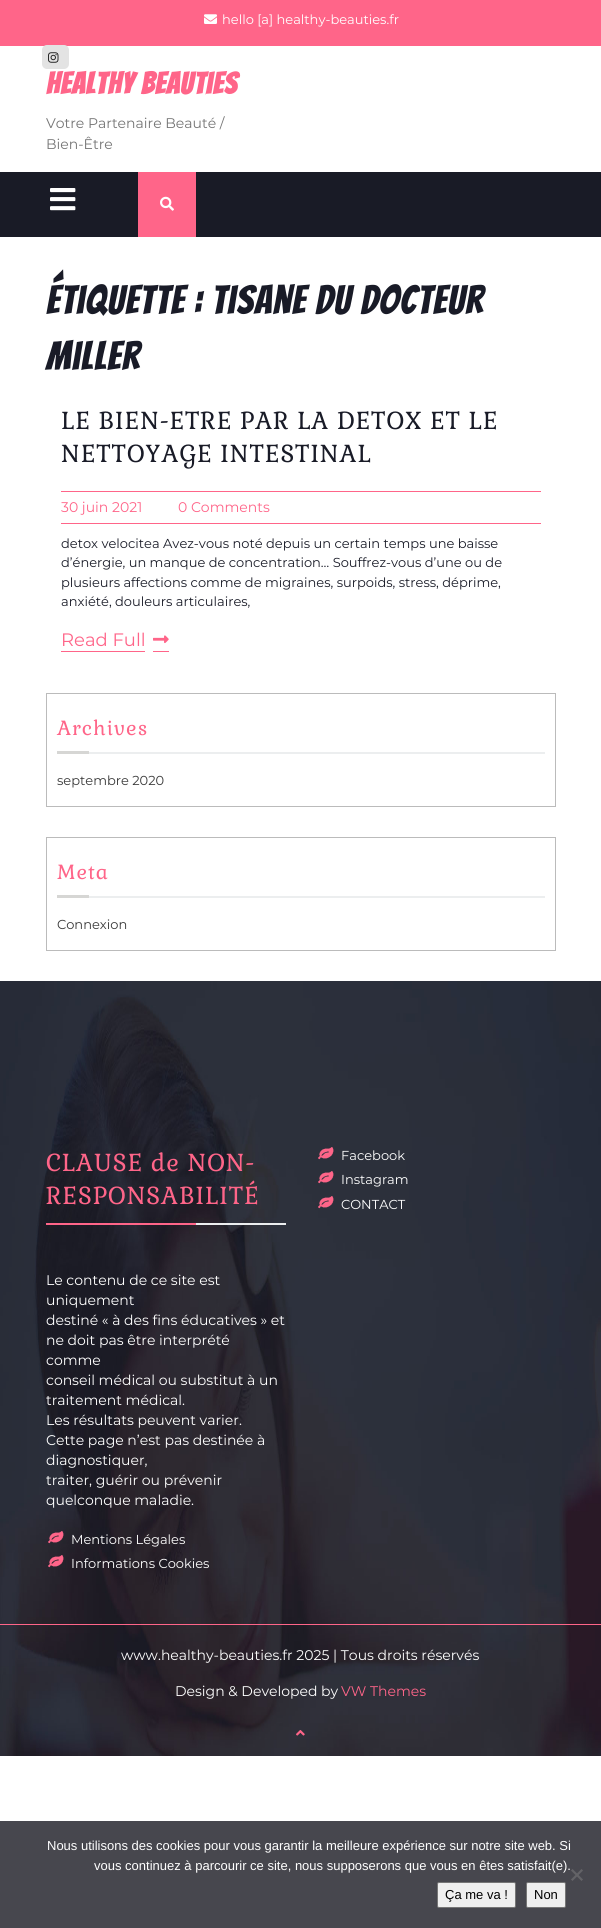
#include <cairo.h>
#include <math.h>
#include <stddef.h>


static void set_color(cairo_t *cr, unsigned color) {
    cairo_set_source_rgb(cr, (color >> 16) / 255.0, (color >> 8 & 255) / 255.0, (color & 255) / 255.0);
}

static void draw_text(cairo_t *cr, double x, double y, const char *s, const char *family, double size, int italic, int bold, unsigned color) {
    cairo_select_font_face(cr, family, italic ? CAIRO_FONT_SLANT_ITALIC : CAIRO_FONT_SLANT_NORMAL,
        bold ? CAIRO_FONT_WEIGHT_BOLD : CAIRO_FONT_WEIGHT_NORMAL);
    cairo_set_font_size(cr, size);
    set_color(cr, color);
    cairo_move_to(cr, x, y);
    cairo_show_text(cr, s);
}

static void draw_spaced(cairo_t *cr, double x, double y, const char *s, double letter, double word) {
    cairo_move_to(cr, x, y);
    while (*s) {
        char ch[5] = {0};
        int n = 0;
        do ch[n++] = *s++; while ((*s & 0xC0) == 0x80);
        cairo_show_text(cr, ch);
        cairo_rel_move_to(cr, letter + word * (*ch == ' '), 0);
    }
}

static void fill_rect(cairo_t *cr, double x, double y, double w, double h, unsigned color) {
    set_color(cr, color);
    cairo_rectangle(cr, x, y, w, h);
    cairo_fill(cr);
}

static void rounded_rect(cairo_t *cr, double x, double y, double w, double h, double r) {
    cairo_new_sub_path(cr);
    cairo_arc(cr, x + w - r, y + h - r, r, 0, M_PI / 2);
    cairo_arc(cr, x + r, y + h - r, r, M_PI / 2, M_PI);
    cairo_arc(cr, x + r, y + r, r, M_PI, 1.5 * M_PI);
    cairo_arc(cr, x + w - r, y + r, r, 1.5 * M_PI, 2 * M_PI);
    cairo_close_path(cr);
}

static void draw_image(cairo_t *cr, const char *path, double x, double y, double w, double h) {
    cairo_surface_t *image = cairo_image_surface_create_from_png(path);
    cairo_save(cr);
    cairo_set_source_surface(cr, image, x, y);
    cairo_rectangle(cr, x, y, w, h);
    cairo_fill(cr);
    cairo_restore(cr);
    cairo_surface_destroy(image);
}

int main(void) {
    cairo_surface_t *surface = cairo_image_surface_create(CAIRO_FORMAT_RGB24, 601, 1928);
    cairo_t *cr = cairo_create(surface);
    cairo_font_options_t *options = cairo_font_options_create();
    cairo_font_options_set_hint_metrics(options, CAIRO_HINT_METRICS_OFF);
    cairo_font_options_set_hint_style(options, CAIRO_HINT_STYLE_NONE);
    cairo_set_font_options(cr, options);
    cairo_set_miter_limit(cr, 4);
    set_color(cr, 0xFFFFFF);
    cairo_paint(cr);
    fill_rect(cr, 0, 1821, 601, 107, 0x47474E);
    fill_rect(cr, 0, 0, 601, 46, 0xFF6589);
    draw_image(cr, "assets/img1.png", 204, 14, 13, 10);
    draw_text(cr, 222, 24, "hello [a] healthy-beauties.fr", "Montserrat", 13, 0, 0, 0xFFFFFF);
    set_color(cr, 0xE3E3E3);
    rounded_rect(cr, 42, 45, 27, 24, 5);
    cairo_fill(cr);
    draw_image(cr, "assets/img2.png", 48, 52, 11, 11);
    cairo_select_font_face(cr, "Bangers", CAIRO_FONT_SLANT_NORMAL, CAIRO_FONT_WEIGHT_BOLD);
    cairo_set_font_size(cr, 30);
    set_color(cr, 0xFF6589);
    draw_spaced(cr, 46, 94, "Healthy BeauTies", 1, 0);
    draw_text(cr, 46, 128, "Votre Partenaire Beauté /", "Montserrat", 14, 0, 0, 0x757575);
    draw_text(cr, 46, 149, "Bien-Être", "Montserrat", 14, 0, 0, 0x757575);
    fill_rect(cr, 0, 172, 601, 65, 0x191B26);
    draw_image(cr, "assets/img3.png", 50, 188, 26, 23);
    fill_rect(cr, 138, 172, 58, 65, 0xFF6589);
    draw_image(cr, "assets/img4.png", 160, 196, 14, 15);
    cairo_select_font_face(cr, "Bangers", CAIRO_FONT_SLANT_NORMAL, CAIRO_FONT_WEIGHT_NORMAL);
    cairo_set_font_size(cr, 40);
    set_color(cr, 0x191B27);
    draw_spaced(cr, 46, 314, "Étiquette : tisane du docteur", 1, 0);
    draw_spaced(cr, 46, 370, "miller", 1, 0);
    cairo_select_font_face(cr, "Gabriela", CAIRO_FONT_SLANT_NORMAL, CAIRO_FONT_WEIGHT_NORMAL);
    cairo_set_font_size(cr, 24);
    draw_spaced(cr, 61, 429, "LE BIEN-ETRE PAR LA DETOX ET LE", 1, 0);
    draw_spaced(cr, 61, 462, "NETTOYAGE INTESTINAL", 1, 0);
    fill_rect(cr, 61, 491, 480, 1, 0xFF6589);
    fill_rect(cr, 61, 523, 480, 1, 0xFF6589);
    draw_text(cr, 61, 512, "30 juin 2021", "Montserrat", 14, 0, 0, 0xFF6589);
    draw_text(cr, 178, 512, "0 Comments", "Montserrat", 14, 0, 0, 0xFF6589);
    draw_text(cr, 61, 548, "detox velocitea Avez-vous noté depuis un certain temps une baisse", "Montserrat", 13, 0, 0, 0x191B27);
    draw_text(cr, 61, 567, "d’énergie, un manque de concentration… Souffrez-vous d’une ou de", "Montserrat", 13, 0, 0, 0x191B27);
    draw_text(cr, 61, 587, "plusieurs affections comme de migraines, surpoids, stress, déprime,", "Montserrat", 13, 0, 0, 0x191B27);
    draw_text(cr, 61, 606, "anxiété, douleurs articulaires,", "Montserrat", 13, 0, 0, 0x191B27);
    fill_rect(cr, 61, 651, 84, 1, 0xFF6589);
    fill_rect(cr, 153, 651, 16, 1, 0xFF6589);
    draw_text(cr, 61, 646, "Read Full", "Montserrat", 18, 0, 0, 0xFF6589);
    draw_image(cr, "assets/img5.png", 153, 635, 16, 9);
    cairo_rectangle(cr, 46.5, 693.5, 509, 113);
    set_color(cr, 0xBBBBBB);
    cairo_set_line_width(cr, 1);
    cairo_stroke(cr);
    fill_rect(cr, 89, 752, 456, 2, 0xECEEEF);
    cairo_select_font_face(cr, "Gabriela", CAIRO_FONT_SLANT_NORMAL, CAIRO_FONT_WEIGHT_NORMAL);
    cairo_set_font_size(cr, 20);
    set_color(cr, 0xFF6589);
    draw_spaced(cr, 57, 735, "Archives", 1, 0);
    fill_rect(cr, 57, 751, 32, 3, 0xD6D6D4);
    draw_text(cr, 57, 785, "septembre 2020", "Montserrat", 13, 0, 0, 0x383838);
    cairo_rectangle(cr, 46.5, 837.5, 509, 113);
    set_color(cr, 0xBBBBBB);
    cairo_stroke(cr);
    fill_rect(cr, 89, 896, 456, 2, 0xECEEEF);
    cairo_select_font_face(cr, "Gabriela", CAIRO_FONT_SLANT_NORMAL, CAIRO_FONT_WEIGHT_NORMAL);
    cairo_set_font_size(cr, 20);
    set_color(cr, 0xFF6589);
    draw_spaced(cr, 57, 879, "Meta", 1, 0);
    fill_rect(cr, 57, 895, 32, 3, 0xD6D6D4);
    draw_text(cr, 57, 929, "Connexion", "Montserrat", 13, 0, 0, 0x383838);
    draw_image(cr, "assets/img6.png", 0, 981, 601, 775);
    fill_rect(cr, 196, 1223, 90, 2, 0xECEEEF);
    cairo_select_font_face(cr, "Gabriela", CAIRO_FONT_SLANT_NORMAL, CAIRO_FONT_WEIGHT_NORMAL);
    cairo_set_font_size(cr, 24);
    set_color(cr, 0xFF6589);
    draw_spaced(cr, 46, 1171, "CLAUSE de NON-", 1, 0);
    draw_spaced(cr, 46, 1204, "RESPONSABILITÉ", 1, 0);
    fill_rect(cr, 46, 1223, 150, 2, 0xFF6589);
    draw_text(cr, 46, 1285, "Le contenu de ce site est", "Montserrat", 14, 0, 0, 0xFFFFFF);
    draw_text(cr, 46, 1305, "uniquement", "Montserrat", 14, 0, 0, 0xFFFFFF);
    draw_text(cr, 46, 1325, "destiné « à des fins éducatives » et", "Montserrat", 14, 0, 0, 0xFFFFFF);
    draw_text(cr, 46, 1345, "ne doit pas être interprété", "Montserrat", 14, 0, 0, 0xFFFFFF);
    draw_text(cr, 46, 1365, "comme", "Montserrat", 14, 0, 0, 0xFFFFFF);
    draw_text(cr, 46, 1385, "conseil médical ou substitut à un", "Montserrat", 14, 0, 0, 0xFFFFFF);
    draw_text(cr, 46, 1405, "traitement médical.", "Montserrat", 14, 0, 0, 0xFFFFFF);
    draw_text(cr, 46, 1425, "Les résultats peuvent varier.", "Montserrat", 14, 0, 0, 0xFFFFFF);
    draw_text(cr, 46, 1445, "Cette page n’est pas destinée à", "Montserrat", 14, 0, 0, 0xFFFFFF);
    draw_text(cr, 46, 1465, "diagnostiquer,", "Montserrat", 14, 0, 0, 0xFFFFFF);
    draw_text(cr, 46, 1485, "traiter, guérir ou prévenir", "Montserrat", 14, 0, 0, 0xFFFFFF);
    draw_text(cr, 46, 1505, "quelconque maladie.", "Montserrat", 14, 0, 0, 0xFFFFFF);
    draw_image(cr, "assets/img7.png", 318, 1147, 16, 13);
    draw_text(cr, 341, 1160, "Facebook", "Montserrat", 13, 0, 0, 0xFFFFFF);
    draw_image(cr, "assets/img7.png", 318, 1171, 16, 13);
    draw_text(cr, 341, 1184, "Instagram", "Montserrat", 13, 0, 0, 0xFFFFFF);
    draw_image(cr, "assets/img7.png", 318, 1196, 16, 13);
    draw_text(cr, 341, 1209, "CONTACT", "Montserrat", 13, 0, 0, 0xFFFFFF);
    draw_image(cr, "assets/img8.png", 48, 1531, 16, 13);
    draw_text(cr, 71, 1544, "Mentions Légales", "Montserrat", 13, 0, 0, 0xFFFFFF);
    draw_image(cr, "assets/img9.png", 48, 1555, 16, 13);
    draw_text(cr, 71, 1568, "Informations Cookies", "Montserrat", 13, 0, 0, 0xFFFFFF);
    fill_rect(cr, 0, 1624, 601, 1, 0xFF6589);
    draw_text(cr, 121, 1660, "www.healthy-beauties.fr 2025 | Tous droits réservés", "Montserrat", 14, 0, 0, 0xFFFFFF);
    draw_text(cr, 175, 1696, "Design & Developed by", "Montserrat", 14, 0, 0, 0xFFFFFF);
    draw_text(cr, 341, 1696, "VW Themes", "Montserrat", 14, 0, 0, 0xFF6589);
    draw_image(cr, "assets/img10.png", 296, 1730, 9, 6);
    draw_text(cr, 47, 1850, "Nous utilisons des cookies pour vous garantir la meilleure expérience sur notre site web. Si", "Liberation Sans", 13, 0, 0, 0xFFFFFF);
    draw_text(cr, 94, 1870, "vous continuez à parcourir ce site, nous supposerons que vous en êtes satisfait(e).", "Liberation Sans", 13, 0, 0, 0xFFFFFF);
    set_color(cr, 0x636367);
    cairo_new_path(cr);
    cairo_move_to(cr, 581.5, 1869);
    cairo_line_to(cr, 583, 1870.5);
    cairo_line_to(cr, 572.5, 1881);
    cairo_line_to(cr, 571, 1879.5);
    cairo_close_path(cr);
    cairo_fill(cr);
    cairo_new_path(cr);
    cairo_move_to(cr, 571, 1870.5);
    cairo_line_to(cr, 572.5, 1869);
    cairo_line_to(cr, 583, 1879.5);
    cairo_line_to(cr, 581.5, 1881);
    cairo_close_path(cr);
    cairo_fill(cr);
    set_color(cr, 0xEFEFEF);
    rounded_rect(cr, 437.5, 1882.5, 78, 25, 1.5);
    cairo_fill_preserve(cr);
    set_color(cr, 0x767676);
    cairo_stroke(cr);
    draw_text(cr, 445, 1899, "Ça me va !", "Liberation Sans", 13, 0, 0, 0x000000);
    set_color(cr, 0xEFEFEF);
    rounded_rect(cr, 526.5, 1882.5, 39, 25, 1.5);
    cairo_fill_preserve(cr);
    set_color(cr, 0x767676);
    cairo_stroke(cr);
    draw_text(cr, 534, 1899, "Non", "Liberation Sans", 13, 0, 0, 0x000000);
    cairo_surface_write_to_png(surface, "output.png");
    cairo_font_options_destroy(options);
    cairo_destroy(cr);
    cairo_surface_destroy(surface);
    return 0;
}
